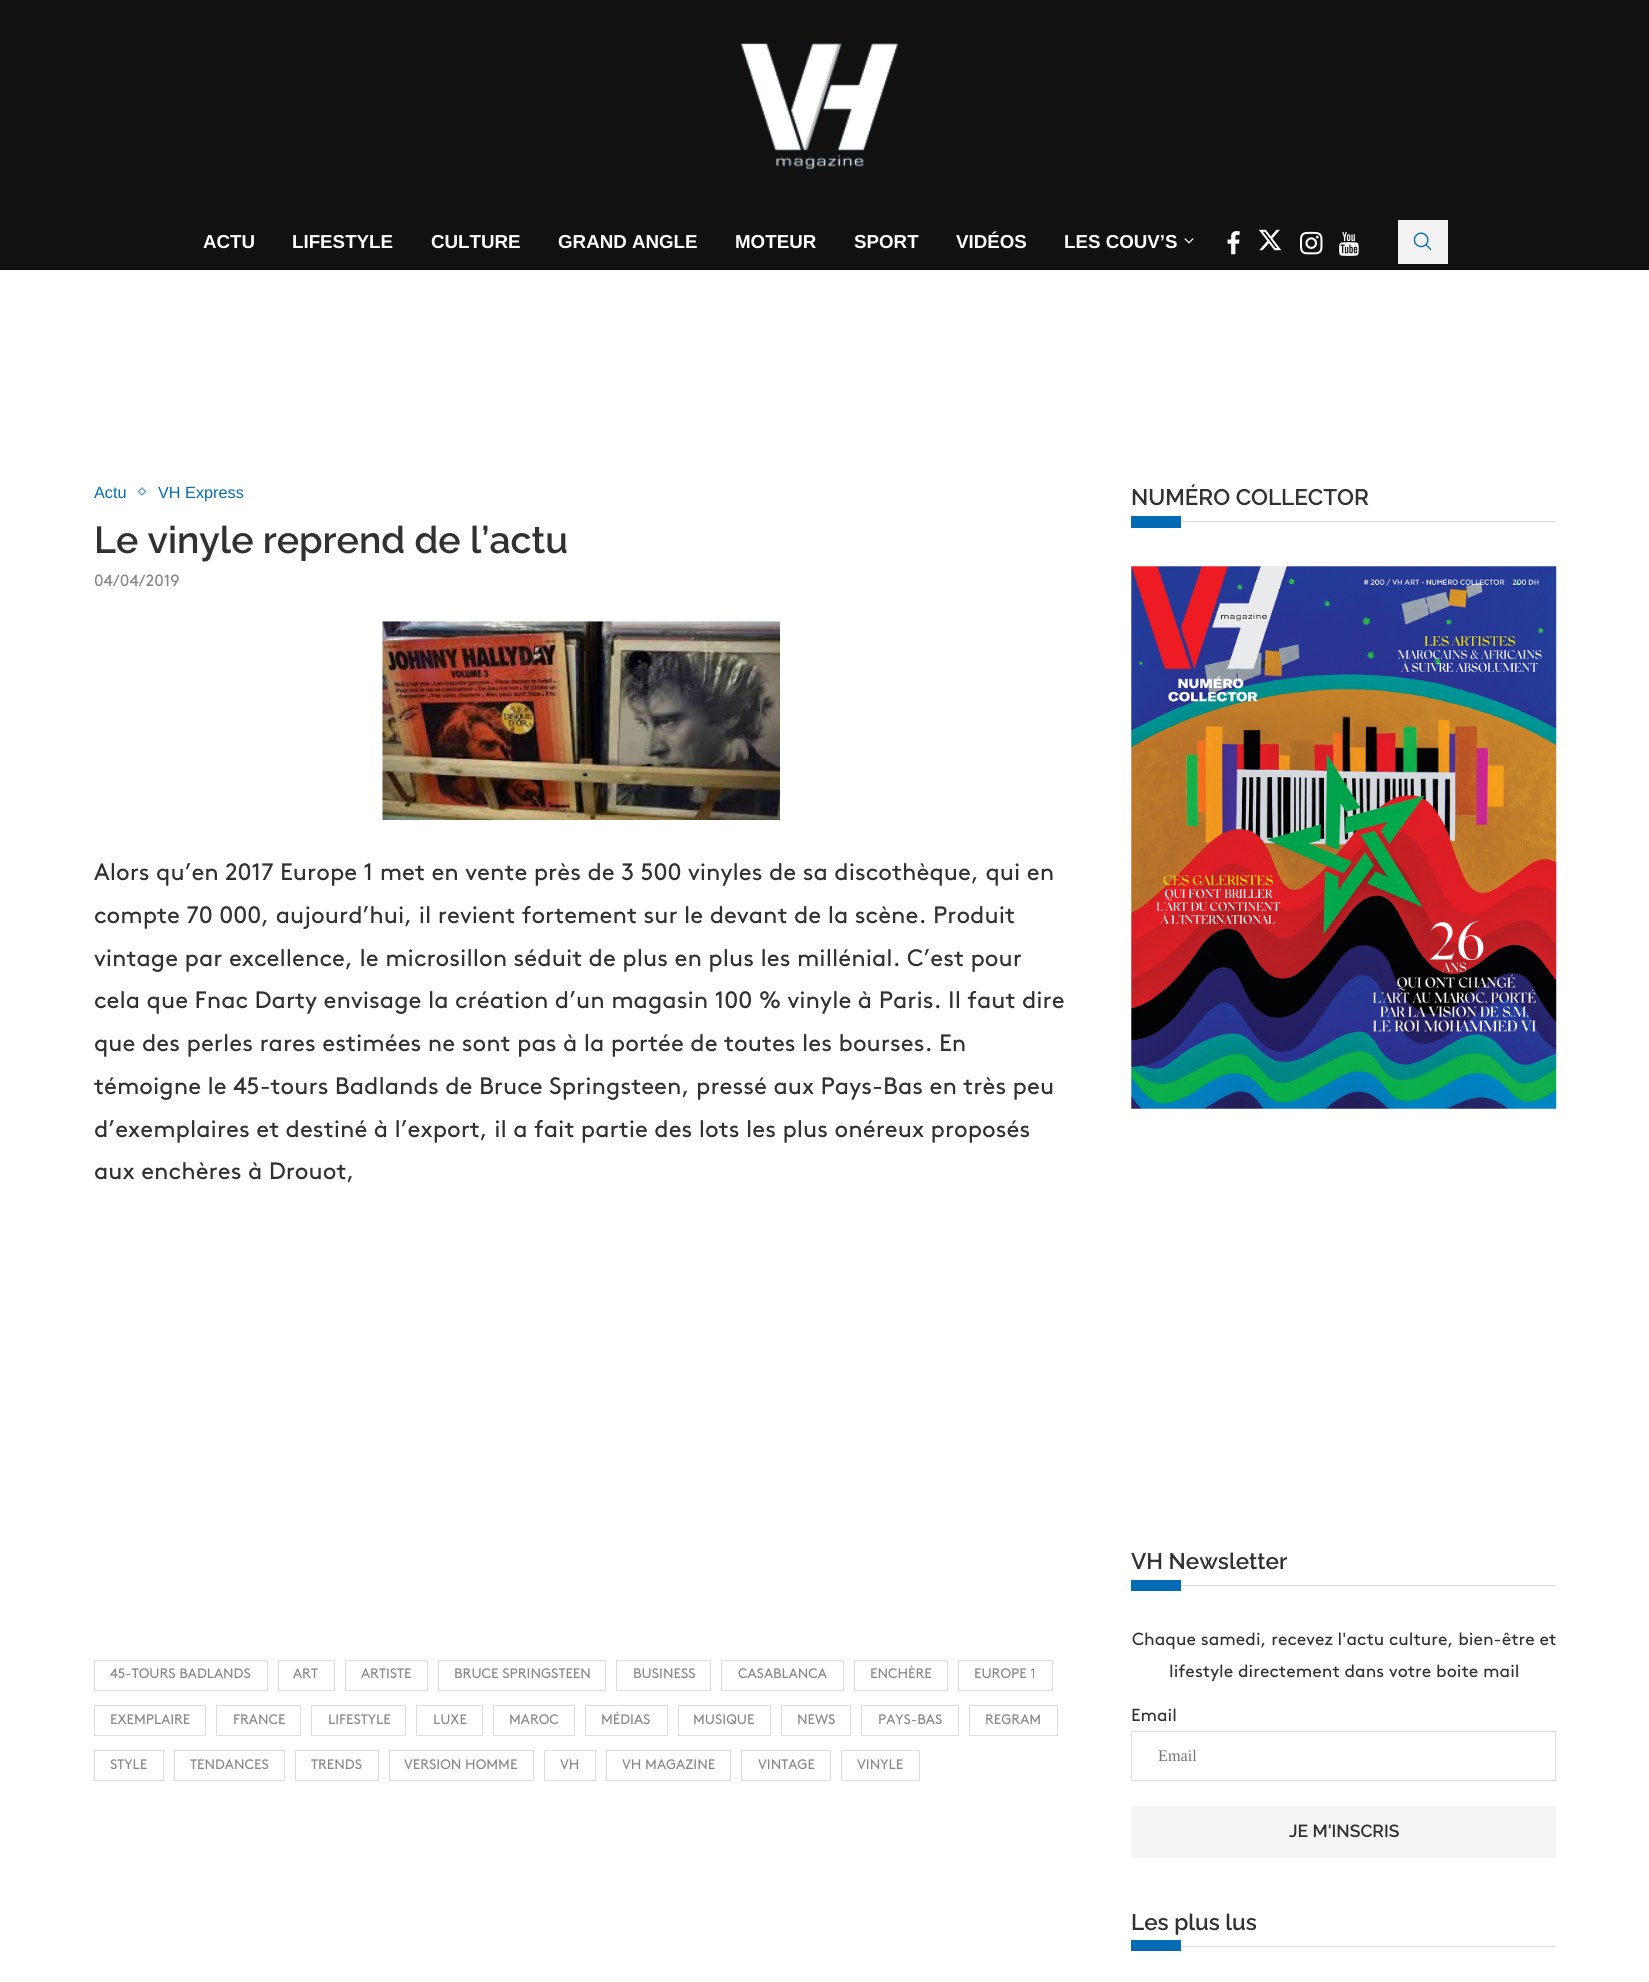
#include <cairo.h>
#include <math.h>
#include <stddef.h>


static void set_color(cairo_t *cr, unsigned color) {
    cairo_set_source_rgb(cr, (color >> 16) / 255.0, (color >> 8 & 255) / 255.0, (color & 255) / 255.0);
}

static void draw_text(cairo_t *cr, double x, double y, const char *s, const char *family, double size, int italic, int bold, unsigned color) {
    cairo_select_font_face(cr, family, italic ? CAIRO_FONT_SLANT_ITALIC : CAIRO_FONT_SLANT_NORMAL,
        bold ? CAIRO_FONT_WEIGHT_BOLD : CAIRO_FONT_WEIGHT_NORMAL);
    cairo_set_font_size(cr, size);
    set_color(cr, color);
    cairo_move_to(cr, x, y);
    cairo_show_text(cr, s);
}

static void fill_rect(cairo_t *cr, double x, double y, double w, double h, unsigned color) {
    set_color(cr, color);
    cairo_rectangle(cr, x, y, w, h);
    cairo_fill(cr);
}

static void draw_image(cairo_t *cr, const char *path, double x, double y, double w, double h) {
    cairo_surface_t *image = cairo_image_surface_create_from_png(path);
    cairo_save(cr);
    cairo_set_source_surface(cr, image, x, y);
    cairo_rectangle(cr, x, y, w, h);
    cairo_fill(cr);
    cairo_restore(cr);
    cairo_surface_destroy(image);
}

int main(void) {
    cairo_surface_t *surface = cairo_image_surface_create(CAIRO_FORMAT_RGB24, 1649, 1982);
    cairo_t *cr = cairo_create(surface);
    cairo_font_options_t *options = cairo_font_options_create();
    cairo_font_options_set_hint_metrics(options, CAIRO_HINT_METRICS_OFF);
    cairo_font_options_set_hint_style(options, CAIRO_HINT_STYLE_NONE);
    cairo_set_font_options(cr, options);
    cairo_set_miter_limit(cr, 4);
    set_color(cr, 0xFFFFFF);
    cairo_paint(cr);
    fill_rect(cr, 0, 0, 1649, 270, 0x111111);
    draw_image(cr, "assets/img1.png", 741, 43, 157, 126);
    draw_text(cr, 203, 248, "ACTU", "Liberation Sans", 18.75, 0, 1, 0xFFFFFF);
    draw_text(cr, 292, 248, "LIFESTYLE", "Liberation Sans", 18.75, 0, 1, 0xFFFFFF);
    draw_text(cr, 431, 248, "CULTURE", "Liberation Sans", 18.75, 0, 1, 0xFFFFFF);
    draw_text(cr, 558, 248, "GRAND ANGLE", "Liberation Sans", 18.75, 0, 1, 0xFFFFFF);
    draw_text(cr, 735, 248, "MOTEUR", "Liberation Sans", 18.75, 0, 1, 0xFFFFFF);
    draw_text(cr, 854, 248, "SPORT", "Liberation Sans", 18.75, 0, 1, 0xFFFFFF);
    draw_text(cr, 956, 248, "VIDÉOS", "Liberation Sans", 18.75, 0, 1, 0xFFFFFF);
    draw_text(cr, 1064, 248, "LES COUV’S", "Liberation Sans", 18.75, 0, 1, 0xFFFFFF);
    draw_image(cr, "assets/img2.png", 1184, 238, 10, 6);
    draw_image(cr, "assets/img3.png", 1227, 231, 13, 24);
    draw_image(cr, "assets/img4.png", 1258, 229, 24, 22);
    draw_image(cr, "assets/img5.png", 1300, 231, 23, 24);
    draw_image(cr, "assets/img6.png", 1339, 232, 20, 24);
    fill_rect(cr, 1398, 220, 50, 44, 0xF2F2F2);
    draw_image(cr, "assets/img7.png", 1413, 232, 19, 18);
    draw_text(cr, 94, 498, "Actu", "Liberation Sans", 16.25, 0, 0, 0x026BB3);
    cairo_new_path(cr);
    cairo_move_to(cr, 142, 488);
    cairo_line_to(cr, 145.5, 491.5);
    cairo_line_to(cr, 142, 495);
    cairo_line_to(cr, 138.5, 491.5);
    cairo_close_path(cr);
    set_color(cr, 0x5B9FCE);
    cairo_set_line_width(cr, 1.3);
    cairo_stroke(cr);
    draw_text(cr, 158, 498, "VH Express", "Liberation Sans", 16.25, 0, 0, 0x026BB3);
    draw_text(cr, 94, 553, "Le vinyle reprend de l’actu", "Raleway SemiBold", 37.5, 0, 0, 0x313131);
    draw_text(cr, 94, 586, "04/04/2019", "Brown", 16.25, 0, 0, 0x888888);
    draw_image(cr, "assets/img8.png", 382, 621, 398, 199);
    draw_text(cr, 94, 880, "Alors qu’en 2017 Europe 1 met en vente près de 3 500 vinyles de sa discothèque, qui en", "Brown", 23.75, 0, 0, 0x313131);
    draw_text(cr, 94, 923, "compte 70 000, aujourd’hui, il revient fortement sur le devant de la scène. Produit", "Brown", 23.75, 0, 0, 0x313131);
    draw_text(cr, 94, 966, "vintage par excellence, le microsillon séduit de plus en plus les millénial. C’est pour", "Brown", 23.75, 0, 0, 0x313131);
    draw_text(cr, 94, 1008, "cela que Fnac Darty envisage la création d’un magasin 100 % vinyle à Paris. Il faut dire", "Brown", 23.75, 0, 0, 0x313131);
    draw_text(cr, 94, 1051, "que des perles rares estimées ne sont pas à la portée de toutes les bourses. En", "Brown", 23.75, 0, 0, 0x313131);
    draw_text(cr, 94, 1094, "témoigne le 45-tours Badlands de Bruce Springsteen, pressé aux Pays-Bas en très peu", "Brown", 23.75, 0, 0, 0x313131);
    draw_text(cr, 94, 1137, "d’exemplaires et destiné à l’export, il a fait partie des lots les plus onéreux proposés", "Brown", 23.75, 0, 0, 0x313131);
    draw_text(cr, 94, 1179, "aux enchères à Drouot,", "Brown", 23.75, 0, 0, 0x313131);
    cairo_rectangle(cr, 94.5, 1660.5, 173, 30);
    set_color(cr, 0xDEDEDE);
    cairo_set_line_width(cr, 1);
    cairo_stroke(cr);
    draw_text(cr, 110, 1678, "45-TOURS BADLANDS", "Brown", 13.75, 0, 0, 0x888888);
    cairo_rectangle(cr, 278.5, 1660.5, 56, 30);
    set_color(cr, 0xDEDEDE);
    cairo_stroke(cr);
    draw_text(cr, 293, 1678, "ART", "Brown", 13.75, 0, 0, 0x888888);
    cairo_rectangle(cr, 345.5, 1660.5, 82, 30);
    set_color(cr, 0xDEDEDE);
    cairo_stroke(cr);
    draw_text(cr, 361, 1678, "ARTISTE", "Brown", 13.75, 0, 0, 0x888888);
    cairo_rectangle(cr, 438.5, 1660.5, 167, 30);
    set_color(cr, 0xDEDEDE);
    cairo_stroke(cr);
    draw_text(cr, 454, 1678, "BRUCE SPRINGSTEEN", "Brown", 13.75, 0, 0, 0x888888);
    cairo_rectangle(cr, 616.5, 1660.5, 94, 30);
    set_color(cr, 0xDEDEDE);
    cairo_stroke(cr);
    draw_text(cr, 633, 1678, "BUSINESS", "Brown", 13.75, 0, 0, 0x888888);
    cairo_rectangle(cr, 721.5, 1660.5, 122, 30);
    set_color(cr, 0xDEDEDE);
    cairo_stroke(cr);
    draw_text(cr, 738, 1678, "CASABLANCA", "Brown", 13.75, 0, 0, 0x888888);
    cairo_rectangle(cr, 854.5, 1660.5, 93, 30);
    set_color(cr, 0xDEDEDE);
    cairo_stroke(cr);
    draw_text(cr, 870, 1678, "ENCHÈRE", "Brown", 13.75, 0, 0, 0x888888);
    cairo_rectangle(cr, 958.5, 1660.5, 94, 30);
    set_color(cr, 0xDEDEDE);
    cairo_stroke(cr);
    draw_text(cr, 974, 1678, "EUROPE 1", "Brown", 13.75, 0, 0, 0x888888);
    cairo_rectangle(cr, 94.5, 1705.5, 111, 30);
    set_color(cr, 0xDEDEDE);
    cairo_stroke(cr);
    draw_text(cr, 110, 1724, "EXEMPLAIRE", "Brown", 13.75, 0, 0, 0x888888);
    cairo_rectangle(cr, 216.5, 1705.5, 84, 30);
    set_color(cr, 0xDEDEDE);
    cairo_stroke(cr);
    draw_text(cr, 233, 1724, "FRANCE", "Brown", 13.75, 0, 0, 0x888888);
    cairo_rectangle(cr, 311.5, 1705.5, 94, 30);
    set_color(cr, 0xDEDEDE);
    cairo_stroke(cr);
    draw_text(cr, 328, 1724, "LIFESTYLE", "Brown", 13.75, 0, 0, 0x888888);
    cairo_rectangle(cr, 416.5, 1705.5, 66, 30);
    set_color(cr, 0xDEDEDE);
    cairo_stroke(cr);
    draw_text(cr, 433, 1724, "LUXE", "Brown", 13.75, 0, 0, 0x888888);
    cairo_rectangle(cr, 493.5, 1705.5, 81, 30);
    set_color(cr, 0xDEDEDE);
    cairo_stroke(cr);
    draw_text(cr, 509, 1724, "MAROC", "Brown", 13.75, 0, 0, 0x888888);
    cairo_rectangle(cr, 585.5, 1705.5, 82, 30);
    set_color(cr, 0xDEDEDE);
    cairo_stroke(cr);
    draw_text(cr, 601, 1724, "MÉDIAS", "Brown", 13.75, 0, 0, 0x888888);
    cairo_rectangle(cr, 678.5, 1705.5, 92, 30);
    set_color(cr, 0xDEDEDE);
    cairo_stroke(cr);
    draw_text(cr, 693, 1724, "MUSIQUE", "Brown", 13.75, 0, 0, 0x888888);
    cairo_rectangle(cr, 781.5, 1705.5, 69, 30);
    set_color(cr, 0xDEDEDE);
    cairo_stroke(cr);
    draw_text(cr, 797, 1724, "NEWS", "Brown", 13.75, 0, 0, 0x888888);
    cairo_rectangle(cr, 861.5, 1705.5, 97, 30);
    set_color(cr, 0xDEDEDE);
    cairo_stroke(cr);
    draw_text(cr, 878, 1724, "PAYS-BAS", "Brown", 13.75, 0, 0, 0x888888);
    cairo_rectangle(cr, 969.5, 1705.5, 88, 30);
    set_color(cr, 0xDEDEDE);
    cairo_stroke(cr);
    draw_text(cr, 985, 1724, "REGRAM", "Brown", 13.75, 0, 0, 0x888888);
    cairo_rectangle(cr, 94.5, 1750.5, 69, 30);
    set_color(cr, 0xDEDEDE);
    cairo_stroke(cr);
    draw_text(cr, 110, 1769, "STYLE", "Brown", 13.75, 0, 0, 0x888888);
    cairo_rectangle(cr, 174.5, 1750.5, 110, 30);
    set_color(cr, 0xDEDEDE);
    cairo_stroke(cr);
    draw_text(cr, 190, 1769, "TENDANCES", "Brown", 13.75, 0, 0, 0x888888);
    cairo_rectangle(cr, 295.5, 1750.5, 83, 30);
    set_color(cr, 0xDEDEDE);
    cairo_stroke(cr);
    draw_text(cr, 311, 1769, "TRENDS", "Brown", 13.75, 0, 0, 0x888888);
    cairo_rectangle(cr, 389.5, 1750.5, 144, 30);
    set_color(cr, 0xDEDEDE);
    cairo_stroke(cr);
    draw_text(cr, 404, 1769, "VERSION HOMME", "Brown", 13.75, 0, 0, 0x888888);
    cairo_rectangle(cr, 544.5, 1750.5, 51, 30);
    set_color(cr, 0xDEDEDE);
    cairo_stroke(cr);
    draw_text(cr, 560, 1769, "VH", "Brown", 13.75, 0, 0, 0x888888);
    cairo_rectangle(cr, 606.5, 1750.5, 124, 30);
    set_color(cr, 0xDEDEDE);
    cairo_stroke(cr);
    draw_text(cr, 622, 1769, "VH MAGAZINE", "Brown", 13.75, 0, 0, 0x888888);
    cairo_rectangle(cr, 741.5, 1750.5, 89, 30);
    set_color(cr, 0xDEDEDE);
    cairo_stroke(cr);
    draw_text(cr, 758, 1769, "VINTAGE", "Brown", 13.75, 0, 0, 0x888888);
    cairo_rectangle(cr, 841.5, 1750.5, 78, 30);
    set_color(cr, 0xDEDEDE);
    cairo_stroke(cr);
    draw_text(cr, 857, 1769, "VINYLE", "Brown", 13.75, 0, 0, 0x888888);
    fill_rect(cr, 1181, 521, 375, 1, 0xDEDEDE);
    draw_text(cr, 1131, 505, "NUMÉRO COLLECTOR", "Raleway SemiBold", 22.5, 0, 0, 0x313131);
    fill_rect(cr, 1131, 516, 50, 12, 0x026BB3);
    draw_image(cr, "assets/img9.png", 1131, 566, 426, 543);
    fill_rect(cr, 1181, 1585, 375, 1, 0xDEDEDE);
    draw_text(cr, 1131, 1569, "VH Newsletter", "Raleway SemiBold", 22.5, 0, 0, 0x313131);
    fill_rect(cr, 1131, 1580, 50, 11, 0x026BB3);
    draw_text(cr, 1132, 1645, "Chaque samedi, recevez l'actu culture, bien-être et", "Brown", 17.5, 0, 0, 0x313131);
    draw_text(cr, 1169, 1677, "lifestyle directement dans votre boite mail", "Brown", 17.5, 0, 0, 0x313131);
    draw_text(cr, 1131, 1721, "Email", "Brown", 17.5, 0, 0, 0x313131);
    cairo_rectangle(cr, 1131.5, 1731.5, 424, 49);
    set_color(cr, 0xDEDEDE);
    cairo_stroke(cr);
    draw_text(cr, 1158, 1761, "Email", "Liberation Serif", 16.25, 0, 0, 0x757575);
    fill_rect(cr, 1131, 1806, 425, 52, 0xF5F5F5);
    draw_text(cr, 1289, 1837, "JE M'INSCRIS", "Raleway SemiBold", 17.5, 0, 0, 0x313131);
    fill_rect(cr, 1181, 1946, 375, 1, 0xDEDEDE);
    draw_text(cr, 1131, 1930, "Les plus lus", "Raleway SemiBold", 22.5, 0, 0, 0x313131);
    fill_rect(cr, 1131, 1940, 50, 11, 0x026BB3);
    cairo_surface_write_to_png(surface, "output.png");
    cairo_font_options_destroy(options);
    cairo_destroy(cr);
    cairo_surface_destroy(surface);
    return 0;
}
